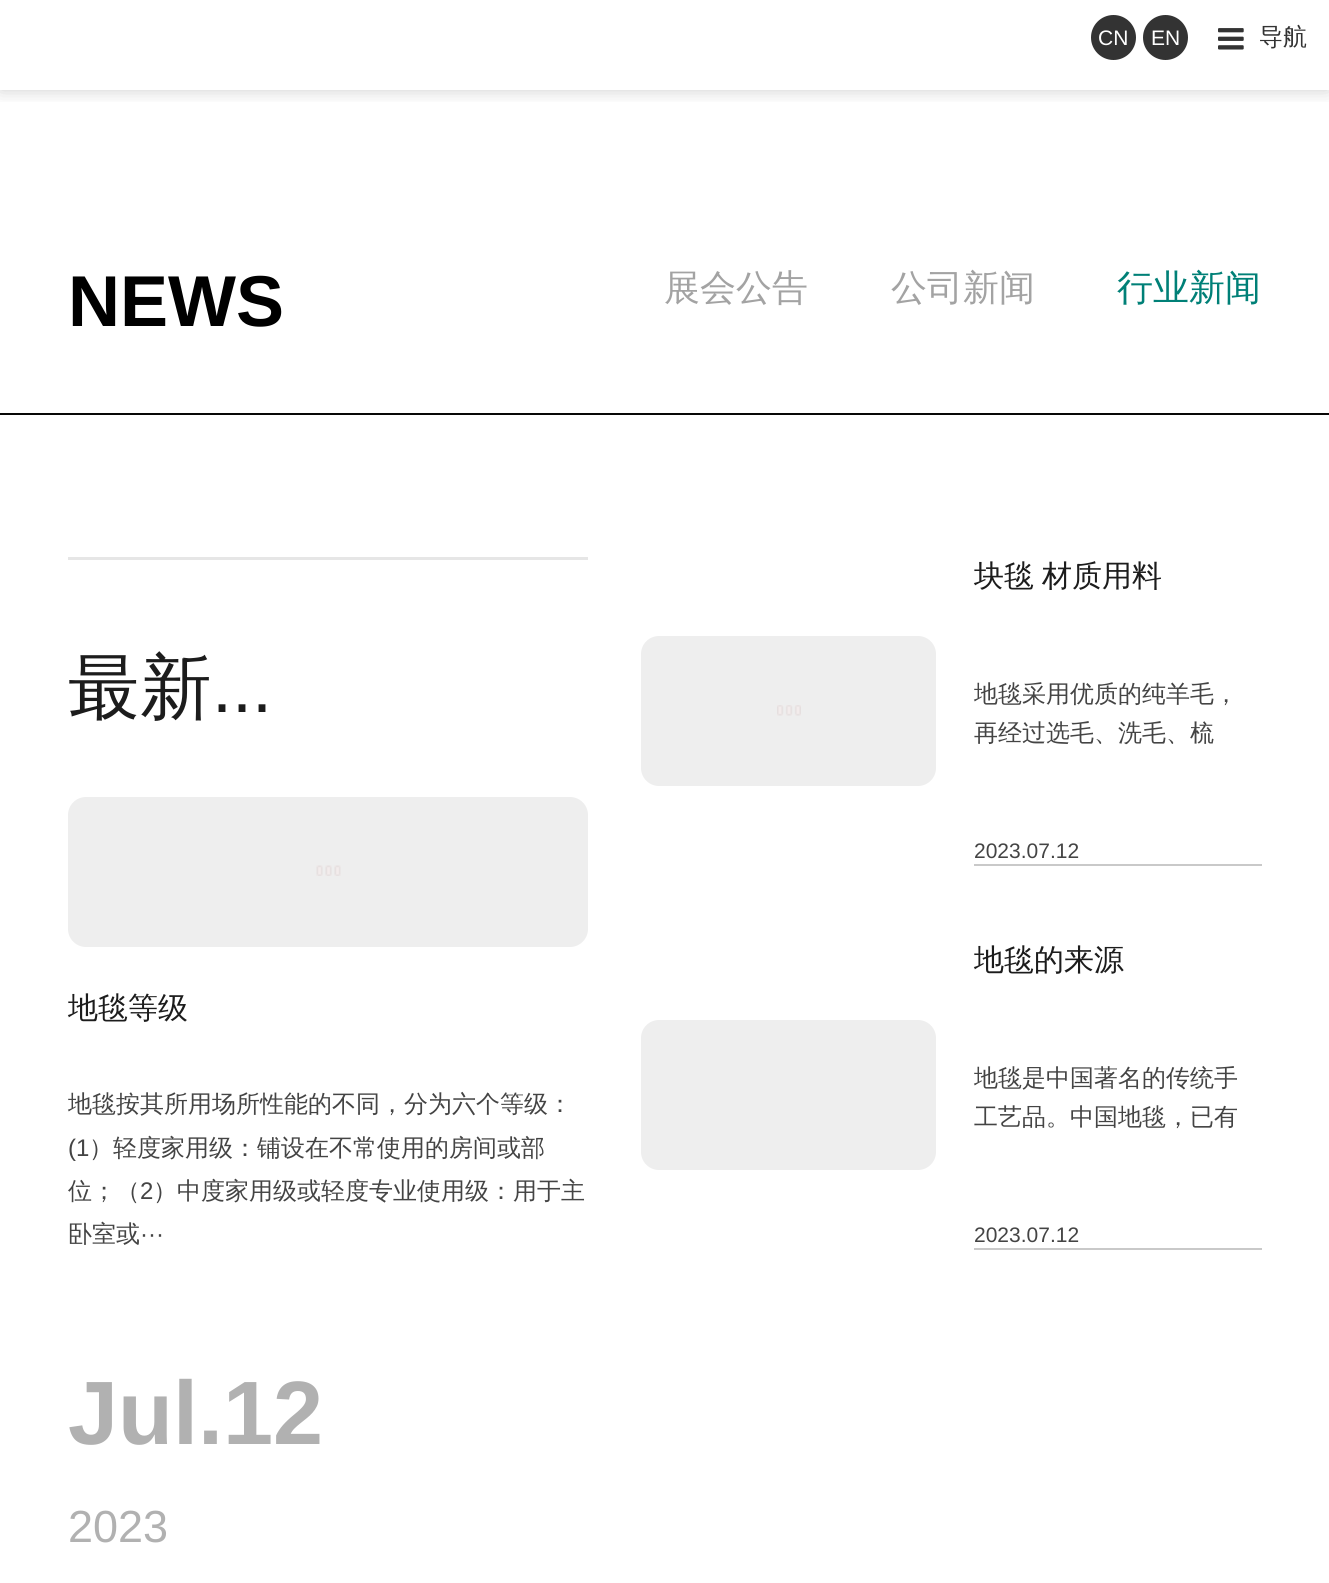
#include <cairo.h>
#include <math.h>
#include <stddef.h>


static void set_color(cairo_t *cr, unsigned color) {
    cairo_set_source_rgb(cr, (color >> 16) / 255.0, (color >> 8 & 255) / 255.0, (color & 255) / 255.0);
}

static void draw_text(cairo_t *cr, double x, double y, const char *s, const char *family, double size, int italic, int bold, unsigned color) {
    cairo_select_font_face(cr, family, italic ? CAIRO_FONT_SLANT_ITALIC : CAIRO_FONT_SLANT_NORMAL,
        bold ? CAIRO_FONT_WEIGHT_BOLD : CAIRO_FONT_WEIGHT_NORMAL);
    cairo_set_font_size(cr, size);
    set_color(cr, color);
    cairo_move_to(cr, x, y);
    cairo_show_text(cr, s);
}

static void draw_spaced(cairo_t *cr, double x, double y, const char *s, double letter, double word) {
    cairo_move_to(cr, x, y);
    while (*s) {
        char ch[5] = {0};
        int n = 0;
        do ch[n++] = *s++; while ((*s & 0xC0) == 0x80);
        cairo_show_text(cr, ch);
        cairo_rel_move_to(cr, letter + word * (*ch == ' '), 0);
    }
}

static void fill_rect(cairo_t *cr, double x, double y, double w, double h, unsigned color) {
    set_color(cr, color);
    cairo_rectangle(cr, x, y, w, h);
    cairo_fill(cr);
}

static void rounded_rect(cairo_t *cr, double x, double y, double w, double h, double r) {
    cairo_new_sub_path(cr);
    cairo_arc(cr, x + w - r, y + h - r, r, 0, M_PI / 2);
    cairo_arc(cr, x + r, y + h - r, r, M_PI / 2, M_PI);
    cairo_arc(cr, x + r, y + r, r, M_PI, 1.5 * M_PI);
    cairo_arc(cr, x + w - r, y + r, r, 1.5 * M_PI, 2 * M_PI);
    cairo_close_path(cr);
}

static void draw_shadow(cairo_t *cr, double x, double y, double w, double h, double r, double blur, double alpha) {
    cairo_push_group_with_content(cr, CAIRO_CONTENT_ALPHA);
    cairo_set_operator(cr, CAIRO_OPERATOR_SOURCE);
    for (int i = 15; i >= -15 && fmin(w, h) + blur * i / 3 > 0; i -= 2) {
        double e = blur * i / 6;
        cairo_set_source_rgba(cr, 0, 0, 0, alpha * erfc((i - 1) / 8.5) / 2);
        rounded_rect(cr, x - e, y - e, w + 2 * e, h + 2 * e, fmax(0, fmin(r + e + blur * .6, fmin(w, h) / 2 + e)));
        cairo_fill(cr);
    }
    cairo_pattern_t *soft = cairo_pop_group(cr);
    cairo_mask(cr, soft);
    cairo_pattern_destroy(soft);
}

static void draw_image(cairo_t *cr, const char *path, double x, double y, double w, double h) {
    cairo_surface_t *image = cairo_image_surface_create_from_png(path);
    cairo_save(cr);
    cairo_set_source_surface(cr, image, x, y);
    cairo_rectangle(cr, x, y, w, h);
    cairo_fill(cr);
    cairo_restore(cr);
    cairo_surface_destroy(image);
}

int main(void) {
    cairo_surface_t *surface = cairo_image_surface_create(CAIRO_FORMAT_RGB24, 1329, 1583);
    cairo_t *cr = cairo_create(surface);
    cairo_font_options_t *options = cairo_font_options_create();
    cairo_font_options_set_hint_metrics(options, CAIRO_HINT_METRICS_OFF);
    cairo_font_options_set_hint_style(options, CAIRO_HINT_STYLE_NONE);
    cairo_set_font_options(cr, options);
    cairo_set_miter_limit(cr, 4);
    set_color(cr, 0xFFFFFF);
    cairo_paint(cr);
    cairo_save(cr);
    cairo_rectangle(cr, 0, 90, 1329, 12);
    cairo_clip(cr);
    set_color(cr, 0x000000);
    draw_shadow(cr, 0, 0, 1329, 90, 0, 9, 0.2);
    cairo_restore(cr);
    set_color(cr, 0x333333);
    cairo_arc(cr, 1113.5, 37.5, 22.5, 0, 2 * M_PI);
    cairo_fill(cr);
    draw_text(cr, 1098, 45, "CN", "Liberation Sans", 21, 0, 0, 0xFFFFFF);
    set_color(cr, 0x333333);
    cairo_new_path(cr);
    cairo_arc(cr, 1165.5, 37.5, 22.5, 0, 2 * M_PI);
    cairo_fill(cr);
    draw_text(cr, 1151, 45, "EN", "Liberation Sans", 21, 0, 0, 0xFFFFFF);
    draw_image(cr, "assets/img1.png", 1218, 28, 26, 22);
    draw_text(cr, 1259, 45, "导航", "WenQuanYi Zen Hei Medium", 24, 0, 0, 0x333333);
    fill_rect(cr, 0, 413, 1329, 2, 0x080806);
    draw_text(cr, 68, 326, "NEWS", "Liberation Sans", 72, 0, 1, 0x000000);
    draw_text(cr, 664, 300, "展会公告", "WenQuanYi Zen Hei Medium", 36, 0, 0, 0xA3A3A3);
    draw_text(cr, 891, 300, "公司新闻", "WenQuanYi Zen Hei Medium", 36, 0, 0, 0xA3A3A3);
    draw_text(cr, 1117, 300, "行业新闻", "WenQuanYi Zen Hei Medium", 36, 0, 0, 0x008077);
    fill_rect(cr, 68, 557, 520, 3, 0xE6E6E6);
    draw_text(cr, 68, 712, "最新", "WenQuanYi Zen Hei Medium", 72, 0, 0, 0x1C1C1C);
    draw_text(cr, 212, 712, "...", "Liberation Sans", 72, 0, 0, 0x1C1C1C);
    set_color(cr, 0xEEEEEE);
    rounded_rect(cr, 68, 797, 520, 150, 18);
    cairo_fill(cr);
    draw_image(cr, "assets/img2.png", 316, 865, 25, 11);
    draw_text(cr, 68, 1018, "地毯等级", "WenQuanYi Zen Hei Medium", 30, 0, 0, 0x1C1C1C);
    draw_text(cr, 68, 1112, "地毯按其所用场所性能的不同，分为六个等级：", "WenQuanYi Zen Hei Medium", 24, 0, 0, 0x444444);
    draw_text(cr, 68, 1156, "(1", "Liberation Sans", 24, 0, 0, 0x444444);
    draw_text(cr, 89, 1156, "）轻度家用级：铺设在不常使用的房间或部", "WenQuanYi Zen Hei Medium", 24, 0, 0, 0x444444);
    draw_text(cr, 68, 1199, "位；（", "WenQuanYi Zen Hei Medium", 24, 0, 0, 0x444444);
    draw_text(cr, 140, 1199, "2", "Liberation Sans", 24, 0, 0, 0x444444);
    draw_text(cr, 153, 1199, "）中度家用级或轻度专业使用级：用于主", "WenQuanYi Zen Hei Medium", 24, 0, 0, 0x444444);
    draw_text(cr, 68, 1242, "卧室或", "WenQuanYi Zen Hei Medium", 24, 0, 0, 0x444444);
    draw_text(cr, 140, 1242, "···", "Liberation Sans", 24, 0, 0, 0x444444);
    draw_text(cr, 68, 1444, "Jul.12", "Liberation Sans", 90, 0, 1, 0xB1B1B1);
    draw_text(cr, 68, 1542, "2023", "Liberation Sans", 45, 0, 0, 0xB1B1B1);
    set_color(cr, 0xEEEEEE);
    rounded_rect(cr, 641, 636, 295, 150, 18);
    cairo_fill(cr);
    draw_image(cr, "assets/img3.png", 777, 705, 24, 11);
    cairo_select_font_face(cr, "WenQuanYi Zen Hei Medium", CAIRO_FONT_SLANT_NORMAL, CAIRO_FONT_WEIGHT_NORMAL);
    cairo_set_font_size(cr, 30);
    set_color(cr, 0x1C1C1C);
    draw_spaced(cr, 974, 586, "块毯 材质用料", 0, -1);
    draw_text(cr, 974, 702, "地毯采用优质的纯羊毛，", "WenQuanYi Zen Hei Medium", 24, 0, 0, 0x444444);
    draw_text(cr, 974, 741, "再经过选毛、洗毛、梳", "WenQuanYi Zen Hei Medium", 24, 0, 0, 0x444444);
    draw_text(cr, 974, 858, "2023.07.12", "Liberation Sans", 21, 0, 0, 0x444444);
    fill_rect(cr, 974, 864, 288, 2, 0xC9C9C9);
    set_color(cr, 0xEEEEEE);
    rounded_rect(cr, 641, 1020, 295, 150, 18);
    cairo_fill(cr);
    draw_text(cr, 974, 970, "地毯的来源", "WenQuanYi Zen Hei Medium", 30, 0, 0, 0x1C1C1C);
    draw_text(cr, 974, 1086, "地毯是中国著名的传统手", "WenQuanYi Zen Hei Medium", 24, 0, 0, 0x444444);
    draw_text(cr, 974, 1125, "工艺品。中国地毯，已有", "WenQuanYi Zen Hei Medium", 24, 0, 0, 0x444444);
    draw_text(cr, 974, 1242, "2023.07.12", "Liberation Sans", 21, 0, 0, 0x444444);
    fill_rect(cr, 974, 1248, 288, 2, 0xC9C9C9);
    cairo_surface_write_to_png(surface, "output.png");
    cairo_font_options_destroy(options);
    cairo_destroy(cr);
    cairo_surface_destroy(surface);
    return 0;
}
